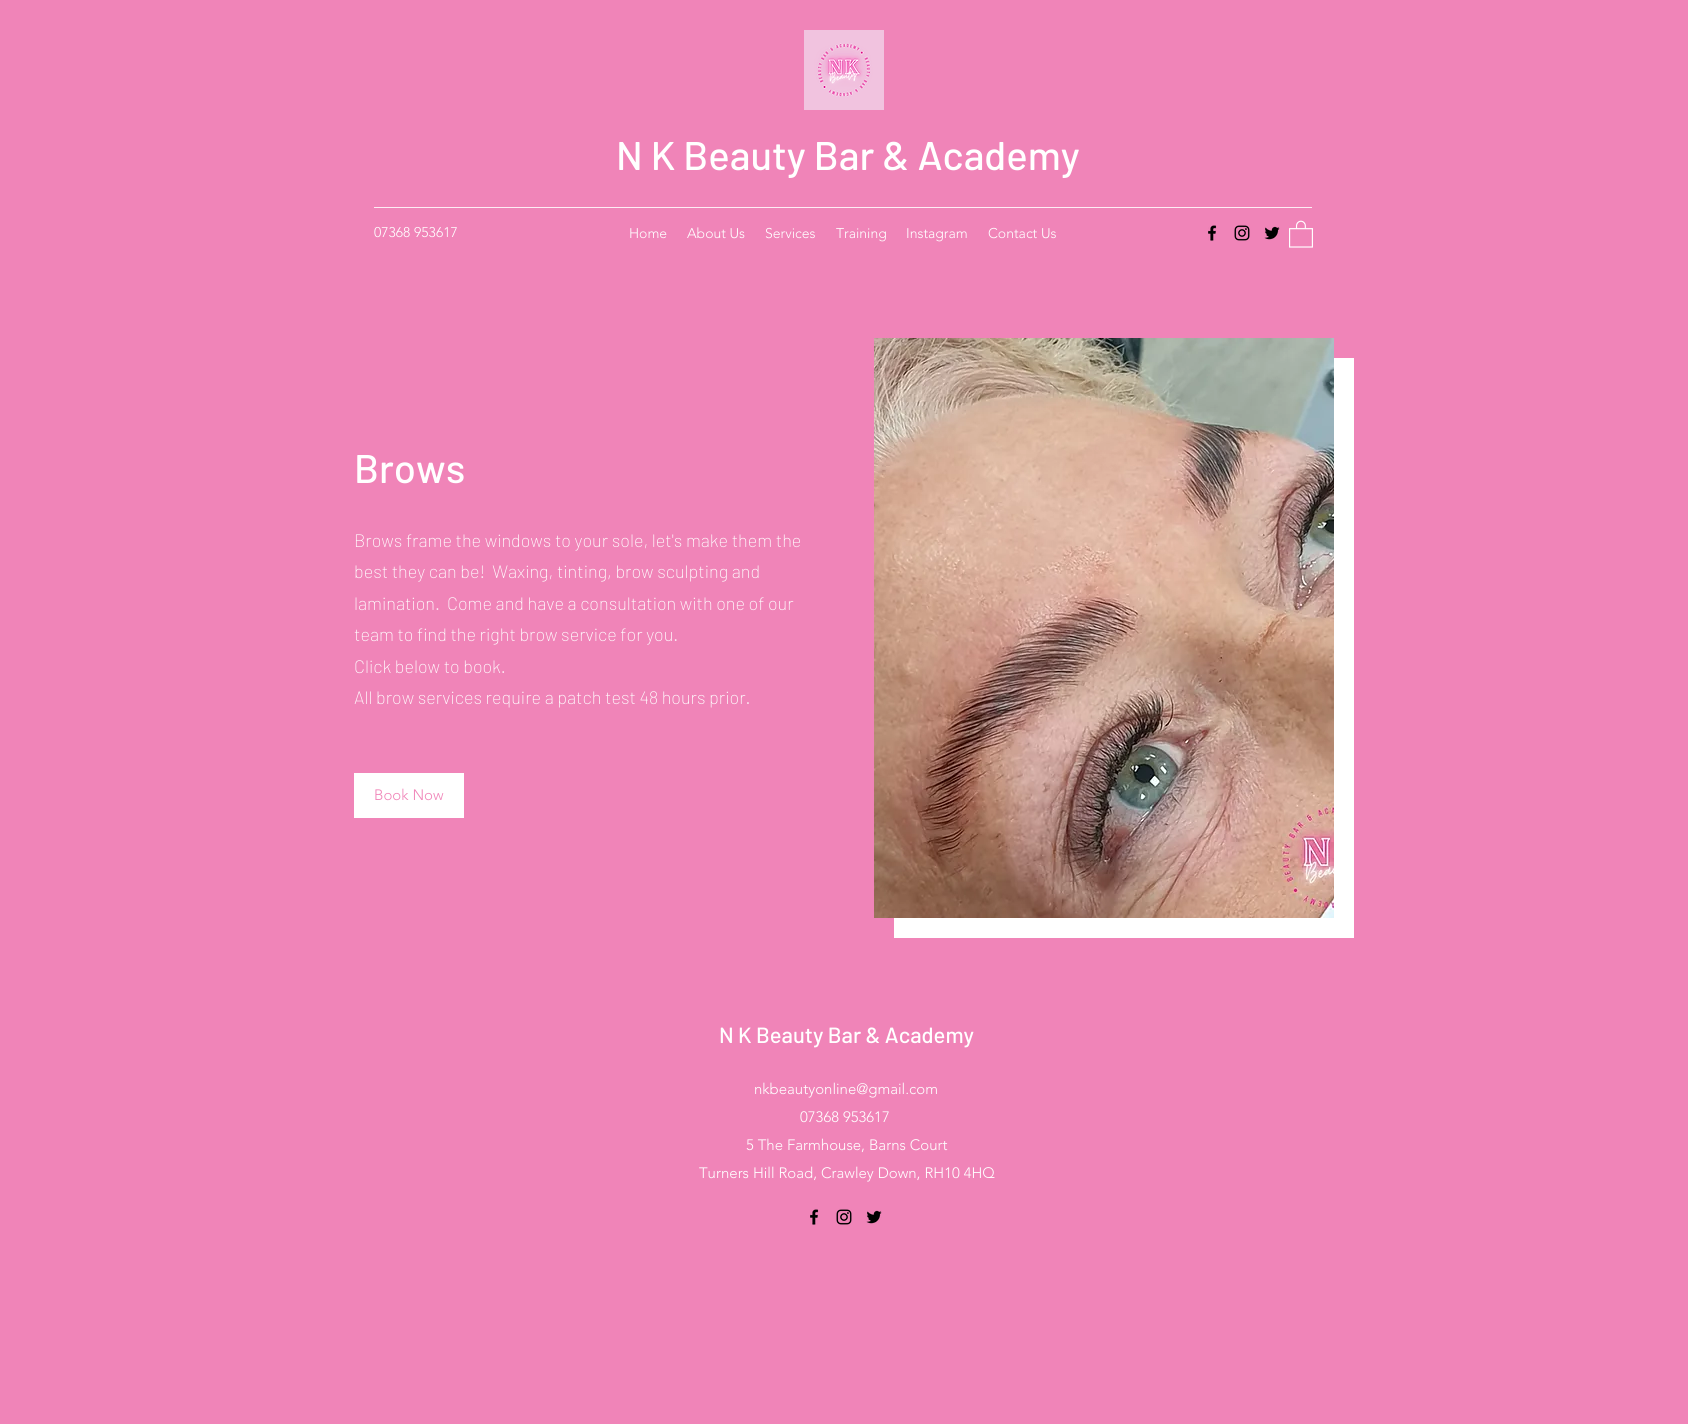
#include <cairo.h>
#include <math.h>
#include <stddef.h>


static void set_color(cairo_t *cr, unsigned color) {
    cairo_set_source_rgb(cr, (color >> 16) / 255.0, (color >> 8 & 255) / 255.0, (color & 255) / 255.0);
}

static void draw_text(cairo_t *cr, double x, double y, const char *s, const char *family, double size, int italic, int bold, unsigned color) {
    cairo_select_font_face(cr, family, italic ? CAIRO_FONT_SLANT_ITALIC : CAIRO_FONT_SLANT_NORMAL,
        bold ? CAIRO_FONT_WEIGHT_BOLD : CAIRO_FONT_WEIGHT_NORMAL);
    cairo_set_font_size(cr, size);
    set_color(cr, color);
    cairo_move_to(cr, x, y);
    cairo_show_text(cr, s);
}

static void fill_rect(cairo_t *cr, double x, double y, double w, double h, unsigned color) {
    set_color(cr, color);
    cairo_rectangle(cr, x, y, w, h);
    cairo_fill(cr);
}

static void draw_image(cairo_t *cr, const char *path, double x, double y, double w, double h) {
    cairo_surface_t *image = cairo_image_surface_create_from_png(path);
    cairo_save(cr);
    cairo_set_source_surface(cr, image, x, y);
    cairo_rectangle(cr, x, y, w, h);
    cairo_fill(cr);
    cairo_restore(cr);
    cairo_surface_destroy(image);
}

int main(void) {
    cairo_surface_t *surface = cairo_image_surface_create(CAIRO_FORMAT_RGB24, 1688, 1424);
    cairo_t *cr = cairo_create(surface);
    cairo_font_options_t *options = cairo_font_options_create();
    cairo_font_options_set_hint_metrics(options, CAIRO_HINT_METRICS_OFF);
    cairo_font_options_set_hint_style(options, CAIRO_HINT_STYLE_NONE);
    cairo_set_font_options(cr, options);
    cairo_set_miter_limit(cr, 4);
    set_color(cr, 0xF084B8);
    cairo_paint(cr);
    draw_image(cr, "assets/img1.png", 804, 30, 80, 80);
    draw_text(cr, 616, 170, "N K Beauty Bar & Academy", "Barlow Medium", 40, 0, 0, 0xFFFFFF);
    fill_rect(cr, 374, 207, 938, 1, 0xFDEDF4);
    draw_text(cr, 374, 237, "07368 953617", "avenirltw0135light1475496 Light", 14, 0, 0, 0xFFFFFF);
    draw_text(cr, 629, 238, "Home", "avenirltw0135light1475496 Light", 14, 0, 0, 0xFFFFFF);
    draw_text(cr, 687, 238, "About Us", "avenirltw0135light1475496 Light", 14, 0, 0, 0xFFFFFF);
    draw_text(cr, 765, 238, "Services", "avenirltw0135light1475496 Light", 14, 0, 0, 0xFFFFFF);
    draw_text(cr, 836, 238, "Training", "avenirltw0135light1475496 Light", 14, 0, 0, 0xFFFFFF);
    draw_text(cr, 906, 238, "Instagram", "avenirltw0135light1475496 Light", 14, 0, 0, 0xFFFFFF);
    draw_text(cr, 988, 238, "Contact Us", "avenirltw0135light1475496 Light", 14, 0, 0, 0xFFFFFF);
    draw_image(cr, "assets/img2.png", 1208, 225, 9, 16);
    draw_image(cr, "assets/img3.png", 1234, 225, 16, 16);
    draw_image(cr, "assets/img4.png", 1264, 226, 16, 14);
    draw_image(cr, "assets/img5.png", 1289, 220, 24, 28);
    draw_text(cr, 354, 483, "Brows", "Barlow Medium", 40, 0, 0, 0xFFFFFF);
    draw_text(cr, 354, 547, "Brows frame the windows to your sole, let's make them the", "Barlow ExtraLight", 18, 0, 0, 0xFFFFFF);
    draw_text(cr, 354, 578, "best they can be!  Waxing, tinting, brow sculpting and", "Barlow ExtraLight", 18, 0, 0, 0xFFFFFF);
    draw_text(cr, 354, 610, "lamination.  Come and have a consultation with one of our", "Barlow ExtraLight", 18, 0, 0, 0xFFFFFF);
    draw_text(cr, 354, 641, "team to find the right brow service for you.", "Barlow ExtraLight", 18, 0, 0, 0xFFFFFF);
    draw_text(cr, 354, 673, "Click below to book.", "Barlow ExtraLight", 18, 0, 0, 0xFFFFFF);
    draw_text(cr, 354, 704, "All brow services require a patch test 48 hours prior.", "Barlow ExtraLight", 18, 0, 0, 0xFFFFFF);
    fill_rect(cr, 354, 773, 110, 45, 0xFFFFFF);
    draw_text(cr, 374, 800, "Book Now", "avenirltw0135light1475496 Light", 15, 0, 0, 0xF084B8);
    fill_rect(cr, 894, 358, 460, 580, 0xFFFFFF);
    draw_image(cr, "assets/img6.png", 874, 338, 460, 580);
    draw_text(cr, 719, 1043, "N K Beauty Bar & Academy", "Barlow Medium", 22, 0, 0, 0xFFFFFF);
    draw_text(cr, 754, 1094, "nkbeautyonline@gmail.com", "avenirltw0135light1475496 Light", 15, 0, 0, 0xFFFFFF);
    draw_text(cr, 800, 1122, "07368 953617", "avenirltw0135light1475496 Light", 15, 0, 0, 0xFFFFFF);
    draw_text(cr, 746, 1150, "5 The Farmhouse, Barns Court", "avenirltw0135light1475496 Light", 15, 0, 0, 0xFFFFFF);
    draw_text(cr, 699, 1178, "Turners Hill Road, Crawley Down, RH10 4HQ", "avenirltw0135light1475496 Light", 15, 0, 0, 0xFFFFFF);
    draw_image(cr, "assets/img2.png", 810, 1209, 9, 16);
    draw_image(cr, "assets/img3.png", 836, 1209, 16, 16);
    draw_image(cr, "assets/img4.png", 866, 1210, 16, 14);
    cairo_surface_write_to_png(surface, "output.png");
    cairo_font_options_destroy(options);
    cairo_destroy(cr);
    cairo_surface_destroy(surface);
    return 0;
}
